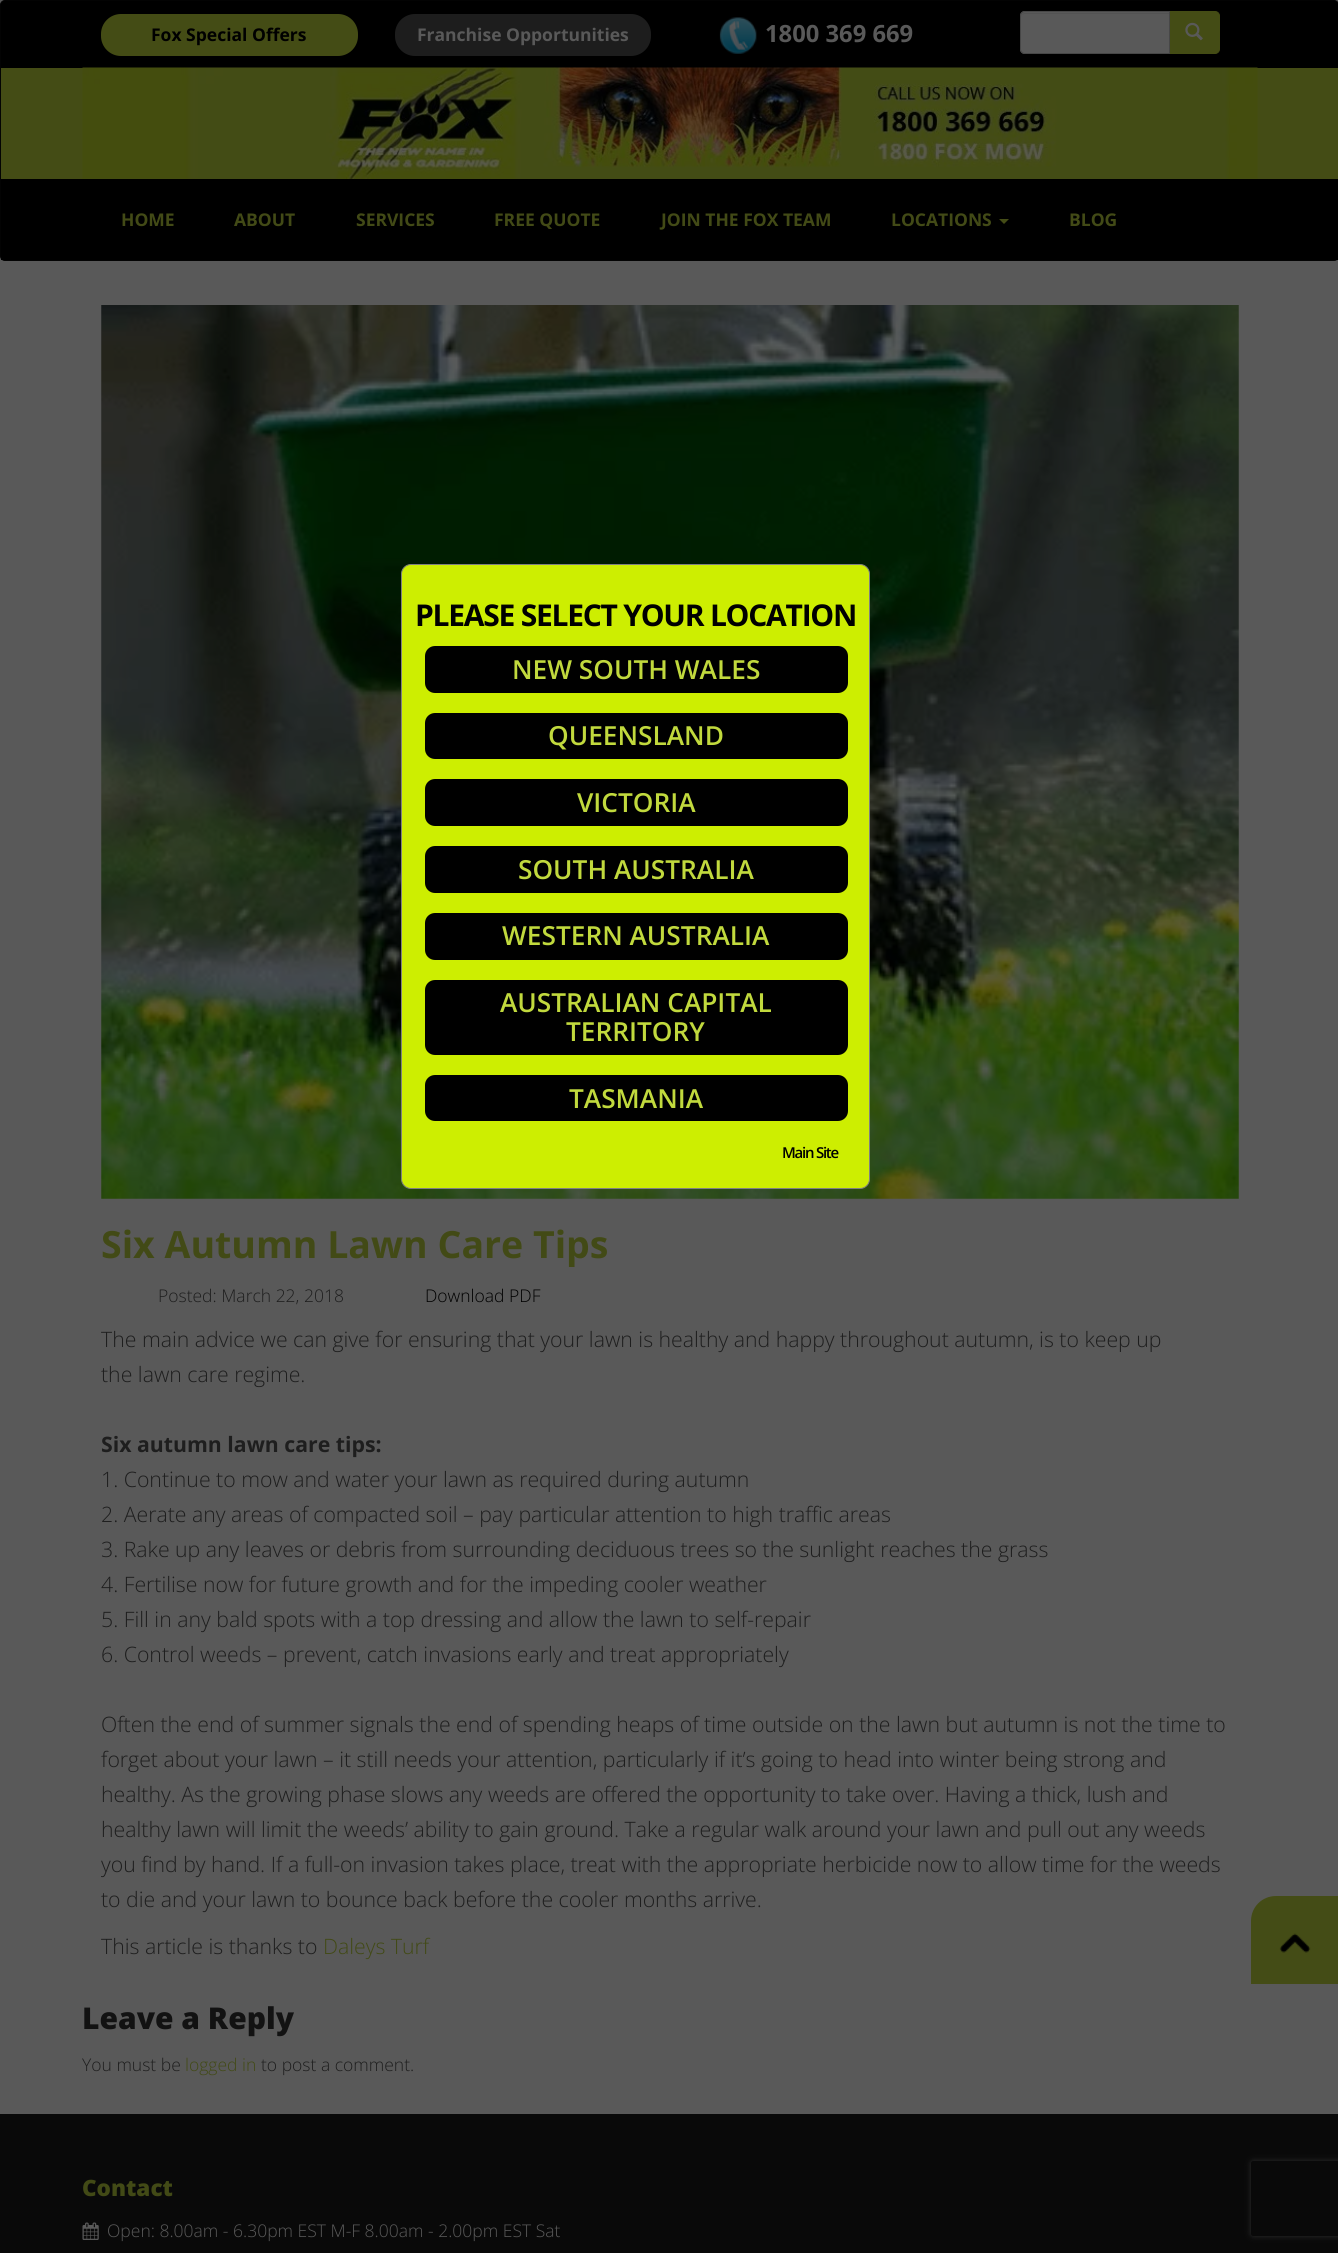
#include <cairo.h>
#include <math.h>
#include <stddef.h>


static void set_color(cairo_t *cr, unsigned color) {
    cairo_set_source_rgb(cr, (color >> 16) / 255.0, (color >> 8 & 255) / 255.0, (color & 255) / 255.0);
}

static void draw_text(cairo_t *cr, double x, double y, const char *s, const char *family, double size, int italic, int bold, unsigned color) {
    cairo_select_font_face(cr, family, italic ? CAIRO_FONT_SLANT_ITALIC : CAIRO_FONT_SLANT_NORMAL,
        bold ? CAIRO_FONT_WEIGHT_BOLD : CAIRO_FONT_WEIGHT_NORMAL);
    cairo_set_font_size(cr, size);
    set_color(cr, color);
    cairo_move_to(cr, x, y);
    cairo_show_text(cr, s);
}

static void draw_spaced(cairo_t *cr, double x, double y, const char *s, double letter, double word) {
    cairo_move_to(cr, x, y);
    while (*s) {
        char ch[5] = {0};
        int n = 0;
        do ch[n++] = *s++; while ((*s & 0xC0) == 0x80);
        cairo_show_text(cr, ch);
        cairo_rel_move_to(cr, letter + word * (*ch == ' '), 0);
    }
}

static void fill_rect(cairo_t *cr, double x, double y, double w, double h, unsigned color) {
    set_color(cr, color);
    cairo_rectangle(cr, x, y, w, h);
    cairo_fill(cr);
}

static void rounded_rect(cairo_t *cr, double x, double y, double w, double h, double r) {
    cairo_new_sub_path(cr);
    cairo_arc(cr, x + w - r, y + h - r, r, 0, M_PI / 2);
    cairo_arc(cr, x + r, y + h - r, r, M_PI / 2, M_PI);
    cairo_arc(cr, x + r, y + r, r, M_PI, 1.5 * M_PI);
    cairo_arc(cr, x + w - r, y + r, r, 1.5 * M_PI, 2 * M_PI);
    cairo_close_path(cr);
}

static void draw_shadow(cairo_t *cr, double x, double y, double w, double h, double r, double blur, double alpha) {
    cairo_push_group_with_content(cr, CAIRO_CONTENT_ALPHA);
    cairo_set_operator(cr, CAIRO_OPERATOR_SOURCE);
    for (int i = 15; i >= -15 && fmin(w, h) + blur * i / 3 > 0; i -= 2) {
        double e = blur * i / 6;
        cairo_set_source_rgba(cr, 0, 0, 0, alpha * erfc((i - 1) / 8.5) / 2);
        rounded_rect(cr, x - e, y - e, w + 2 * e, h + 2 * e, fmax(0, fmin(r + e + blur * .6, fmin(w, h) / 2 + e)));
        cairo_fill(cr);
    }
    cairo_pattern_t *soft = cairo_pop_group(cr);
    cairo_mask(cr, soft);
    cairo_pattern_destroy(soft);
}

static void draw_image(cairo_t *cr, const char *path, double x, double y, double w, double h) {
    cairo_surface_t *image = cairo_image_surface_create_from_png(path);
    cairo_save(cr);
    cairo_set_source_surface(cr, image, x, y);
    cairo_rectangle(cr, x, y, w, h);
    cairo_fill(cr);
    cairo_restore(cr);
    cairo_surface_destroy(image);
}

int main(void) {
    cairo_surface_t *surface = cairo_image_surface_create(CAIRO_FORMAT_RGB24, 1338, 2253);
    cairo_t *cr = cairo_create(surface);
    cairo_font_options_t *options = cairo_font_options_create();
    cairo_font_options_set_hint_metrics(options, CAIRO_HINT_METRICS_OFF);
    cairo_font_options_set_hint_style(options, CAIRO_HINT_STYLE_NONE);
    cairo_set_font_options(cr, options);
    cairo_set_miter_limit(cr, 4);
    set_color(cr, 0x595959);
    cairo_paint(cr);
    set_color(cr, 0x000000);
    rounded_rect(cr, 0.5, 0.5, 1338, 260, 4.5);
    cairo_fill_preserve(cr);
    set_color(cr, 0x030303);
    cairo_set_line_width(cr, 1);
    cairo_stroke(cr);
    set_color(cr, 0x444C15);
    rounded_rect(cr, 101, 14, 257, 42, 20);
    cairo_fill(cr);
    draw_text(cr, 151, 41, "Fox Special Offers", "Open Sans", 17.5, 0, 1, 0x000000);
    set_color(cr, 0x1D1D1D);
    rounded_rect(cr, 395, 14, 256, 42, 20);
    cairo_fill(cr);
    draw_text(cr, 417, 41, "Franchise Opportunities", "Open Sans", 17.5, 0, 1, 0x595959);
    draw_image(cr, "assets/img1.png", 719, 17, 38, 37);
    draw_text(cr, 765, 42, "1800 369 669", "Open Sans", 23.75, 0, 1, 0x595959);
    set_color(cr, 0x444C15);
    cairo_new_path(cr);
    cairo_move_to(cr, 1169.5, 11.5);
    cairo_line_to(cr, 1215, 11.5);
    cairo_curve_to(cr, 1217.5, 11.5, 1219.5, 13.5, 1219.5, 16);
    cairo_line_to(cr, 1219.5, 49);
    cairo_curve_to(cr, 1219.5, 51.5, 1217.5, 53.5, 1215, 53.5);
    cairo_line_to(cr, 1169.5, 53.5);
    cairo_close_path(cr);
    cairo_fill_preserve(cr);
    cairo_stroke(cr);
    set_color(cr, 0x595959);
    cairo_new_path(cr);
    cairo_move_to(cr, 1025, 11);
    cairo_line_to(cr, 1170, 11);
    cairo_line_to(cr, 1170, 54);
    cairo_line_to(cr, 1025, 54);
    cairo_curve_to(cr, 1022, 54, 1020, 52, 1020, 49);
    cairo_line_to(cr, 1020, 16);
    cairo_curve_to(cr, 1020, 13, 1022, 11, 1025, 11);
    cairo_close_path(cr);
    cairo_fill(cr);
    set_color(cr, 0x535353);
    cairo_new_path(cr);
    cairo_move_to(cr, 1025, 14);
    cairo_line_to(cr, 1169, 14);
    cairo_line_to(cr, 1169, 13);
    cairo_line_to(cr, 1025, 13);
    cairo_curve_to(cr, 1023, 13, 1021, 15, 1021, 17);
    cairo_line_to(cr, 1021, 18);
    cairo_curve_to(cr, 1021, 15, 1023, 14, 1025, 14);
    cairo_close_path(cr);
    cairo_fill(cr);
    cairo_new_path(cr);
    cairo_move_to(cr, 1025, 11.5);
    cairo_line_to(cr, 1169.5, 11.5);
    cairo_line_to(cr, 1169.5, 53.5);
    cairo_line_to(cr, 1025, 53.5);
    cairo_curve_to(cr, 1022.5, 53.5, 1020.5, 51.5, 1020.5, 49);
    cairo_line_to(cr, 1020.5, 16);
    cairo_curve_to(cr, 1020.5, 13.5, 1022.5, 11.5, 1025, 11.5);
    cairo_close_path(cr);
    set_color(cr, 0x474747);
    cairo_stroke(cr);
    draw_image(cr, "assets/img2.png", 1185, 22, 18, 19);
    fill_rect(cr, 1, 68, 1337, 111, 0x444C15);
    draw_image(cr, "assets/img3.png", 82, 67, 1176, 112);
    fill_rect(cr, 1, 258, 1337, 2, 0x000000);
    draw_text(cr, 121, 226, "HOME", "Open Sans", 17.5, 0, 1, 0x424A16);
    draw_text(cr, 234, 226, "ABOUT", "Open Sans", 17.5, 0, 1, 0x424A16);
    draw_text(cr, 356, 226, "SERVICES", "Open Sans", 17.5, 0, 1, 0x424A16);
    draw_text(cr, 494, 226, "FREE QUOTE", "Open Sans", 17.5, 0, 1, 0x424A16);
    draw_text(cr, 661, 226, "JOIN THE FOX TEAM", "Open Sans", 17.5, 0, 1, 0x424A16);
    draw_text(cr, 891, 226, "LOCATIONS", "Open Sans", 17.5, 0, 1, 0x424A16);
    set_color(cr, 0x444C16);
    cairo_new_path(cr);
    cairo_move_to(cr, 999, 219);
    cairo_line_to(cr, 1009, 219);
    cairo_line_to(cr, 1004, 224);
    cairo_close_path(cr);
    cairo_fill(cr);
    draw_text(cr, 1069, 226, "BLOG", "Open Sans", 17.5, 0, 1, 0x424A16);
    draw_image(cr, "assets/img4.png", 101, 305, 1138, 894);
    set_color(cr, 0xCDEE01);
    rounded_rect(cr, 401.5, 564.5, 468, 624, 9.5);
    cairo_fill_preserve(cr);
    set_color(cr, 0x808080);
    cairo_stroke(cr);
    cairo_set_font_size(cr, 30);
    set_color(cr, 0x000000);
    draw_spaced(cr, 415, 626, "PLEASE SELECT YOUR LOCATION", -1.25, 0);
    rounded_rect(cr, 425, 646, 423, 47, 10);
    cairo_fill(cr);
    draw_text(cr, 512, 679, "NEW SOUTH WALES", "Open Sans SemiBold", 26.25, 0, 0, 0xC1D93D);
    set_color(cr, 0x000000);
    rounded_rect(cr, 425, 713, 423, 46, 10);
    cairo_fill(cr);
    draw_text(cr, 548, 745, "QUEENSLAND", "Open Sans SemiBold", 26.25, 0, 0, 0xC1D93D);
    set_color(cr, 0x000000);
    rounded_rect(cr, 425, 779, 423, 47, 10);
    cairo_fill(cr);
    draw_text(cr, 577, 812, "VICTORIA", "Open Sans SemiBold", 26.25, 0, 0, 0xC1D93D);
    set_color(cr, 0x000000);
    rounded_rect(cr, 425, 846, 423, 47, 10);
    cairo_fill(cr);
    draw_text(cr, 518, 879, "SOUTH AUSTRALIA", "Open Sans SemiBold", 26.25, 0, 0, 0xC1D93D);
    set_color(cr, 0x000000);
    rounded_rect(cr, 425, 913, 423, 47, 10);
    cairo_fill(cr);
    draw_text(cr, 502, 945, "WESTERN AUSTRALIA", "Open Sans SemiBold", 26.25, 0, 0, 0xC1D93D);
    set_color(cr, 0x000000);
    rounded_rect(cr, 425, 980, 423, 75, 10);
    cairo_fill(cr);
    draw_text(cr, 500, 1012, "AUSTRALIAN CAPITAL", "Open Sans SemiBold", 26.25, 0, 0, 0xC1D93D);
    draw_text(cr, 566, 1041, "TERRITORY", "Open Sans SemiBold", 26.25, 0, 0, 0xC1D93D);
    set_color(cr, 0x000000);
    rounded_rect(cr, 425, 1075, 423, 46, 10);
    cairo_fill(cr);
    draw_text(cr, 569, 1108, "TASMANIA", "Open Sans SemiBold", 26.25, 0, 0, 0xC1D93D);
    cairo_set_font_size(cr, 15);
    set_color(cr, 0x000000);
    draw_spaced(cr, 782, 1158, "Main Site", -1.25, 0);
    draw_text(cr, 101, 1258, "Six Autumn Lawn Care Tips", "Open Sans", 37.5, 0, 1, 0x424A16);
    draw_text(cr, 158, 1302, "Posted: March 22, 2018", "Open Sans Light", 17.5, 0, 0, 0x1E1E1E);
    draw_text(cr, 425, 1302, "Download PDF", "Open Sans Light", 17.5, 0, 0, 0x000000);
    draw_text(cr, 101, 1347, "The main advice we can give for ensuring that your lawn is healthy and happy throughout autumn, is to keep up", "Open Sans Light", 21.25, 0, 0, 0x1E1E1E);
    draw_text(cr, 101, 1382, "the lawn care regime.", "Open Sans Light", 21.25, 0, 0, 0x1E1E1E);
    draw_text(cr, 101, 1452, "Six autumn lawn care tips:", "Open Sans", 21.25, 0, 1, 0x1E1E1E);
    draw_text(cr, 101, 1487, "1. Continue to mow and water your lawn as required during autumn", "Open Sans Light", 21.25, 0, 0, 0x1E1E1E);
    draw_text(cr, 101, 1522, "2. Aerate any areas of compacted soil – pay particular attention to high traffic areas", "Open Sans Light", 21.25, 0, 0, 0x1E1E1E);
    draw_text(cr, 101, 1557, "3. Rake up any leaves or debris from surrounding deciduous trees so the sunlight reaches the grass", "Open Sans Light", 21.25, 0, 0, 0x1E1E1E);
    draw_text(cr, 101, 1592, "4. Fertilise now for future growth and for the impeding cooler weather", "Open Sans Light", 21.25, 0, 0, 0x1E1E1E);
    draw_text(cr, 101, 1627, "5. Fill in any bald spots with a top dressing and allow the lawn to self-repair", "Open Sans Light", 21.25, 0, 0, 0x1E1E1E);
    draw_text(cr, 101, 1662, "6. Control weeds – prevent, catch invasions early and treat appropriately", "Open Sans Light", 21.25, 0, 0, 0x1E1E1E);
    draw_text(cr, 101, 1732, "Often the end of summer signals the end of spending heaps of time outside on the lawn but autumn is not the time to", "Open Sans Light", 21.25, 0, 0, 0x1E1E1E);
    draw_text(cr, 101, 1767, "forget about your lawn – it still needs your attention, particularly if it’s going to head into winter being strong and", "Open Sans Light", 21.25, 0, 0, 0x1E1E1E);
    draw_text(cr, 101, 1802, "healthy. As the growing phase slows any weeds are offered the opportunity to take over. Having a thick, lush and", "Open Sans Light", 21.25, 0, 0, 0x1E1E1E);
    draw_text(cr, 101, 1837, "healthy lawn will limit the weeds’ ability to gain ground. Take a regular walk around your lawn and pull out any weeds", "Open Sans Light", 21.25, 0, 0, 0x1E1E1E);
    draw_text(cr, 101, 1872, "you find by hand. If a full-on invasion takes place, treat with the appropriate herbicide now to allow time for the weeds", "Open Sans Light", 21.25, 0, 0, 0x1E1E1E);
    draw_text(cr, 101, 1907, "to die and your lawn to bounce back before the cooler months arrive.", "Open Sans Light", 21.25, 0, 0, 0x1E1E1E);
    draw_text(cr, 101, 1954, "This article is thanks to", "Open Sans Light", 21.25, 0, 0, 0x1E1E1E);
    draw_text(cr, 323, 1954, "Daleys Turf", "Open Sans Light", 21.25, 0, 0, 0x424A16);
    draw_text(cr, 82, 2029, "Leave a Reply", "Open Sans ExtraBold", 30, 0, 0, 0x121212);
    draw_text(cr, 82, 2071, "You must be", "Open Sans Light", 17.5, 0, 0, 0x1E1E1E);
    draw_text(cr, 185, 2071, "logged in", "Open Sans Light", 17.5, 0, 0, 0x424A16);
    draw_text(cr, 261, 2071, "to post a comment.", "Open Sans Light", 17.5, 0, 0, 0x1E1E1E);
    fill_rect(cr, 0, 2114, 1338, 139, 0x090909);
    set_color(cr, 0x444C16);
    cairo_new_path(cr);
    cairo_move_to(cr, 1276, 1896);
    cairo_line_to(cr, 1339, 1896);
    cairo_line_to(cr, 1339, 1984);
    cairo_line_to(cr, 1251, 1984);
    cairo_line_to(cr, 1251, 1921);
    cairo_curve_to(cr, 1251, 1907, 1262, 1896, 1276, 1896);
    cairo_close_path(cr);
    cairo_fill(cr);
    draw_image(cr, "assets/img5.png", 1279, 1933, 32, 20);
    draw_text(cr, 82, 2196, "Contact", "Open Sans ExtraBold", 22.5, 0, 0, 0x424A16);
    draw_image(cr, "assets/img6.png", 82, 2222, 17, 18);
    draw_text(cr, 107, 2237, "Open: 8.00am - 6.30pm EST M-F 8.00am - 2.00pm EST Sat", "Open Sans Light", 17.5, 0, 0, 0x595959);
    cairo_save(cr);
    cairo_set_fill_rule(cr, CAIRO_FILL_RULE_EVEN_ODD);
    cairo_new_path(cr);
    cairo_move_to(cr, 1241, 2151);
    cairo_line_to(cr, 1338, 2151);
    cairo_line_to(cr, 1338, 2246);
    cairo_line_to(cr, 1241, 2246);
    cairo_close_path(cr);
    cairo_move_to(cr, 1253.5, 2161);
    cairo_line_to(cr, 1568.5, 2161);
    cairo_curve_to(cr, 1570, 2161, 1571, 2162, 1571, 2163.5);
    cairo_line_to(cr, 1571, 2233.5);
    cairo_curve_to(cr, 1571, 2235, 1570, 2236, 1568.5, 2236);
    cairo_line_to(cr, 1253.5, 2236);
    cairo_curve_to(cr, 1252, 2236, 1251, 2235, 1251, 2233.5);
    cairo_line_to(cr, 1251, 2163.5);
    cairo_curve_to(cr, 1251, 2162, 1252, 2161, 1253.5, 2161);
    cairo_close_path(cr);
    cairo_clip(cr);
    set_color(cr, 0x2D2D2D);
    draw_shadow(cr, 1251, 2161, 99, 75, 2.5, 3, 1);
    cairo_restore(cr);
    cairo_surface_write_to_png(surface, "output.png");
    cairo_font_options_destroy(options);
    cairo_destroy(cr);
    cairo_surface_destroy(surface);
    return 0;
}
